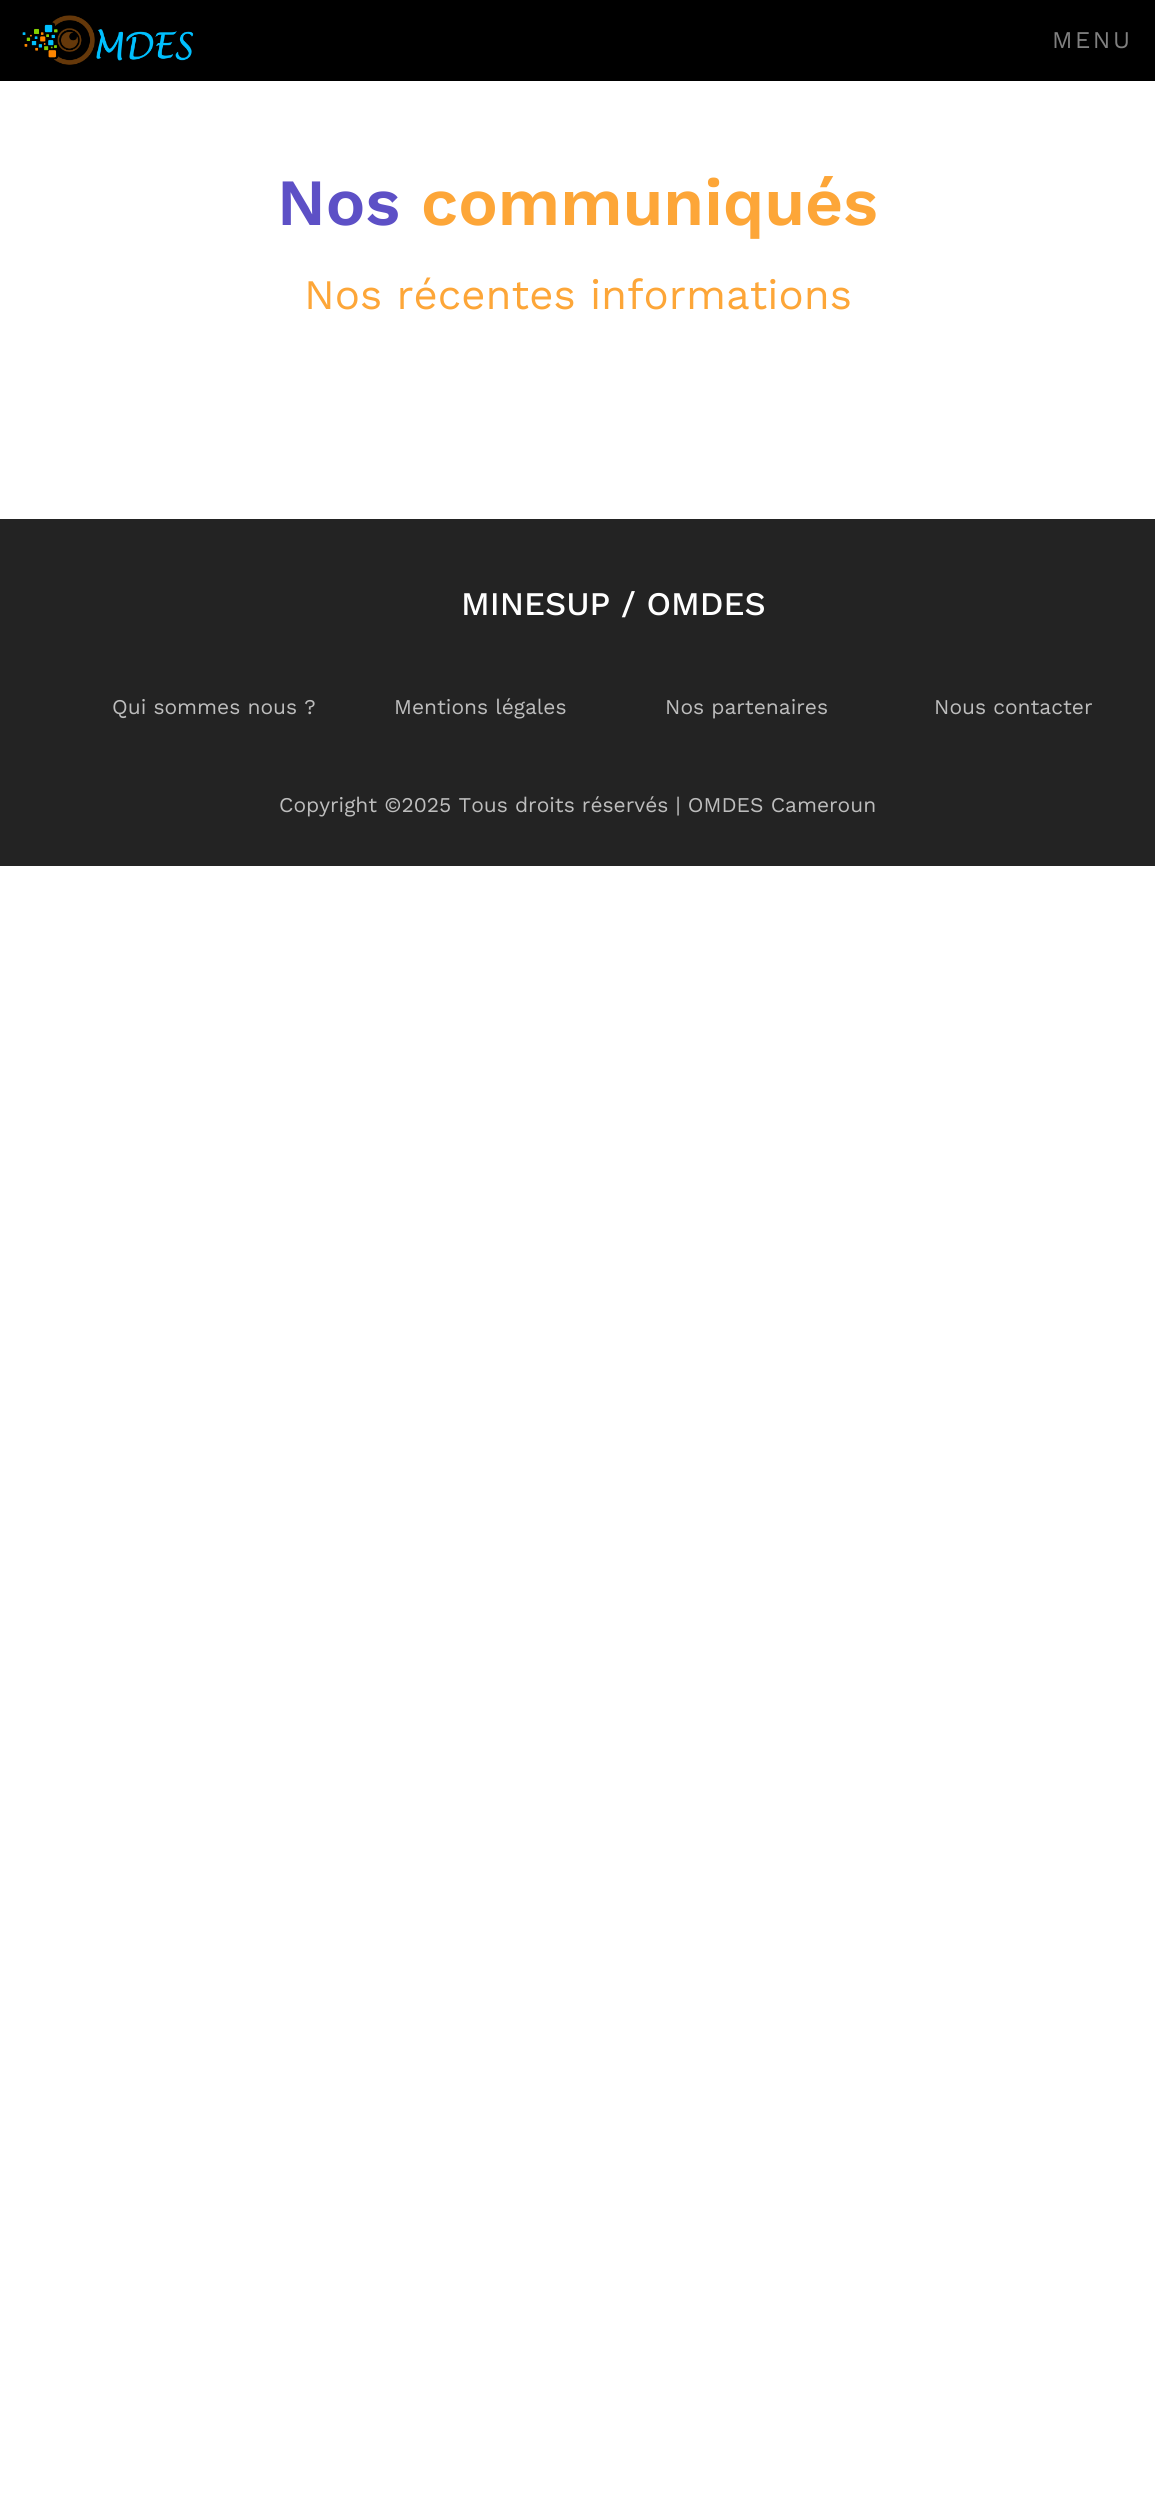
#include <cairo.h>
#include <math.h>
#include <stddef.h>


static void set_color(cairo_t *cr, unsigned color) {
    cairo_set_source_rgb(cr, (color >> 16) / 255.0, (color >> 8 & 255) / 255.0, (color & 255) / 255.0);
}

static void draw_text(cairo_t *cr, double x, double y, const char *s, const char *family, double size, int italic, int bold, unsigned color) {
    cairo_select_font_face(cr, family, italic ? CAIRO_FONT_SLANT_ITALIC : CAIRO_FONT_SLANT_NORMAL,
        bold ? CAIRO_FONT_WEIGHT_BOLD : CAIRO_FONT_WEIGHT_NORMAL);
    cairo_set_font_size(cr, size);
    set_color(cr, color);
    cairo_move_to(cr, x, y);
    cairo_show_text(cr, s);
}

static void draw_spaced(cairo_t *cr, double x, double y, const char *s, double letter, double word) {
    cairo_move_to(cr, x, y);
    while (*s) {
        char ch[5] = {0};
        int n = 0;
        do ch[n++] = *s++; while ((*s & 0xC0) == 0x80);
        cairo_show_text(cr, ch);
        cairo_rel_move_to(cr, letter + word * (*ch == ' '), 0);
    }
}

static void fill_rect(cairo_t *cr, double x, double y, double w, double h, unsigned color) {
    set_color(cr, color);
    cairo_rectangle(cr, x, y, w, h);
    cairo_fill(cr);
}

static void draw_image(cairo_t *cr, const char *path, double x, double y, double w, double h) {
    cairo_surface_t *image = cairo_image_surface_create_from_png(path);
    cairo_save(cr);
    cairo_set_source_surface(cr, image, x, y);
    cairo_rectangle(cr, x, y, w, h);
    cairo_fill(cr);
    cairo_restore(cr);
    cairo_surface_destroy(image);
}

int main(void) {
    cairo_surface_t *surface = cairo_image_surface_create(CAIRO_FORMAT_RGB24, 1155, 2511);
    cairo_t *cr = cairo_create(surface);
    cairo_font_options_t *options = cairo_font_options_create();
    cairo_font_options_set_hint_metrics(options, CAIRO_HINT_METRICS_OFF);
    cairo_font_options_set_hint_style(options, CAIRO_HINT_STYLE_NONE);
    cairo_set_font_options(cr, options);
    cairo_set_miter_limit(cr, 4);
    set_color(cr, 0xFFFFFF);
    cairo_paint(cr);
    fill_rect(cr, 0, 0, 1155, 81, 0x000000);
    draw_image(cr, "assets/img1.png", 22, 15, 172, 50);
    cairo_select_font_face(cr, "Work Sans", CAIRO_FONT_SLANT_NORMAL, CAIRO_FONT_WEIGHT_NORMAL);
    cairo_set_font_size(cr, 24);
    set_color(cr, 0x808080);
    draw_spaced(cr, 1052, 48, "MENU", 2.5, 0);
    draw_text(cr, 277, 225, "Nos", "Work Sans SemiBold", 66, 0, 0, 0x5D50C6);
    draw_text(cr, 421, 225, "communiqués", "Work Sans SemiBold", 66, 0, 0, 0xFDA638);
    draw_text(cr, 304, 309, "Nos récentes informations", "Work Sans", 42, 0, 0, 0xFDA638);
    fill_rect(cr, 0, 519, 1155, 347, 0x232323);
    draw_text(cr, 461, 615, "MINESUP / OMDES", "Work Sans Medium", 33, 0, 0, 0xFFFFFF);
    draw_text(cr, 112, 714, "Qui sommes nous ?", "Work Sans", 21, 0, 0, 0xBDBDBD);
    draw_text(cr, 394, 714, "Mentions légales", "Work Sans", 21, 0, 0, 0xBDBDBD);
    draw_text(cr, 665, 714, "Nos partenaires", "Work Sans", 21, 0, 0, 0xBDBDBD);
    draw_text(cr, 934, 714, "Nous contacter", "Work Sans", 21, 0, 0, 0xBDBDBD);
    draw_text(cr, 279, 812, "Copyright ©2025 Tous droits réservés | OMDES Cameroun", "Work Sans", 21, 0, 0, 0xBDBDBD);
    cairo_surface_write_to_png(surface, "output.png");
    cairo_font_options_destroy(options);
    cairo_destroy(cr);
    cairo_surface_destroy(surface);
    return 0;
}
